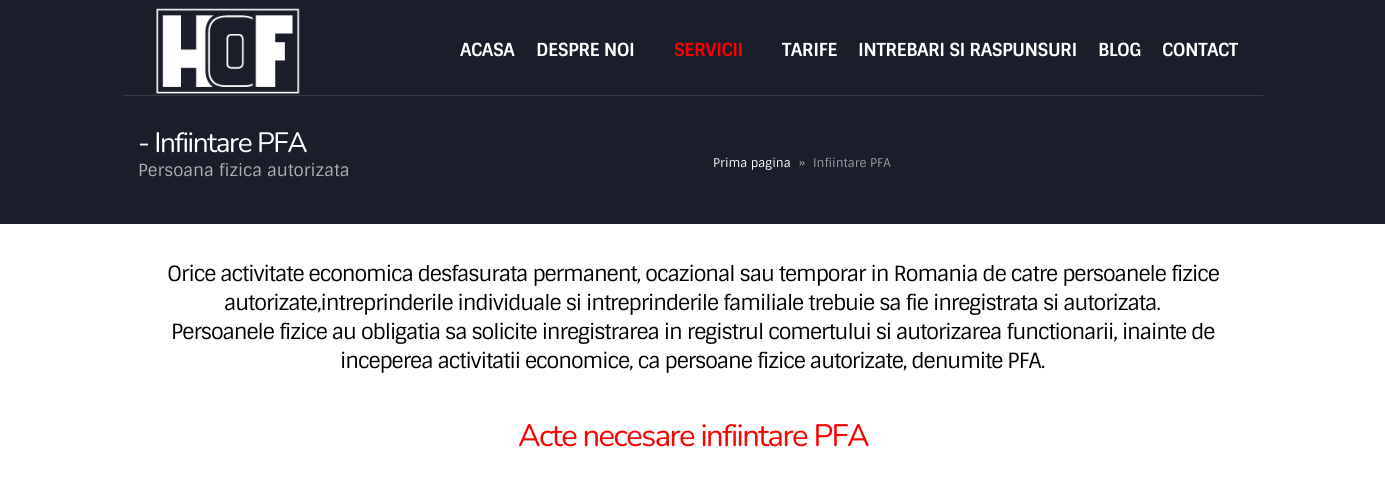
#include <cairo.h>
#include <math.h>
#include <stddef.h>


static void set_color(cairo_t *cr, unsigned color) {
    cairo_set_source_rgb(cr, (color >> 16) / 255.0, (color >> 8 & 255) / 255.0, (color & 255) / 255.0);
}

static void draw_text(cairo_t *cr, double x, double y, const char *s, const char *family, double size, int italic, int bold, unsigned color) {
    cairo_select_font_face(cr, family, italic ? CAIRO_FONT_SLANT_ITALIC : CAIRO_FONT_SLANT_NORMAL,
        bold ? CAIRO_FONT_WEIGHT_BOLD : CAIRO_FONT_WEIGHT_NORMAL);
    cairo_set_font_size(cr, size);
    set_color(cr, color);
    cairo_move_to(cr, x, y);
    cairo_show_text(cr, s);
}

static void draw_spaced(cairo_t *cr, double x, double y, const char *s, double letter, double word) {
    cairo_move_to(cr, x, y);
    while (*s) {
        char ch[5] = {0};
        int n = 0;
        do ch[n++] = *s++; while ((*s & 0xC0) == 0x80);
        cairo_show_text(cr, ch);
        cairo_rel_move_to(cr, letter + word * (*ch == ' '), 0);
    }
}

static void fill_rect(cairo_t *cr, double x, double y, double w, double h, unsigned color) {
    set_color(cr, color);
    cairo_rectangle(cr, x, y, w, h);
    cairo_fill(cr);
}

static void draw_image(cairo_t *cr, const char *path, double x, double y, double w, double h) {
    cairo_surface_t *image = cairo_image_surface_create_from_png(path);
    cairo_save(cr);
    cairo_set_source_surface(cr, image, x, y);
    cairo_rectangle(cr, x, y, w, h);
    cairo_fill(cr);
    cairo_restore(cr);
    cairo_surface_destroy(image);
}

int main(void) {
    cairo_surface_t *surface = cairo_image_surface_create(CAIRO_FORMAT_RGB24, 1385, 495);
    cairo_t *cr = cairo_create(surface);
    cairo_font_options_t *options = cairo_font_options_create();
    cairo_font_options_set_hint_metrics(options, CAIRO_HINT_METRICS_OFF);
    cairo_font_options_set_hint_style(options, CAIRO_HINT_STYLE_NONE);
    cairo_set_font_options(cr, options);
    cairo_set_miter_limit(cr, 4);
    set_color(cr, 0xFFFFFF);
    cairo_paint(cr);
    fill_rect(cr, 0, 0, 1385, 224, 0x1A1E2A);
    fill_rect(cr, 123, 95, 1140, 1, 0x353944);
    draw_image(cr, "assets/img1.png", 156, 8, 144, 86);
    cairo_select_font_face(cr, "Sintony", CAIRO_FONT_SLANT_NORMAL, CAIRO_FONT_WEIGHT_BOLD);
    cairo_set_font_size(cr, 18);
    set_color(cr, 0xFFFFFF);
    draw_spaced(cr, 460, 56, "ACASA", -0.5, 0);
    draw_spaced(cr, 536, 56, "DESPRE NOI", -0.5, 0);
    set_color(cr, 0xFF0000);
    draw_spaced(cr, 674, 56, "SERVICII", -0.5, 0);
    set_color(cr, 0xFFFFFF);
    draw_spaced(cr, 782, 56, "TARIFE", -0.5, 0);
    draw_spaced(cr, 858, 56, "INTREBARI SI RASPUNSURI", -0.5, 0);
    draw_spaced(cr, 1098, 56, "BLOG", -0.5, 0);
    draw_spaced(cr, 1162, 56, "CONTACT", -0.5, 0);
    cairo_select_font_face(cr, "Nunito", CAIRO_FONT_SLANT_NORMAL, CAIRO_FONT_WEIGHT_NORMAL);
    cairo_set_font_size(cr, 28);
    draw_spaced(cr, 138, 152, "- Infiintare PFA", -1.4, 0);
    draw_text(cr, 138, 176, "Persoana fizica autorizata", "Sintony", 16.75, 0, 0, 0xAFB0B4);
    draw_text(cr, 713, 167, "Prima pagina", "Sintony", 12, 0, 0, 0xFFFFFF);
    draw_text(cr, 799, 167, "»", "Sintony", 12, 0, 0, 0x999DA3);
    draw_text(cr, 813, 167, "Infiintare PFA", "Sintony", 12, 0, 0, 0x999DA3);
    cairo_set_font_size(cr, 21);
    set_color(cr, 0x000000);
    draw_spaced(cr, 167, 281, "Orice activitate economica desfasurata permanent, ocazional sau temporar in Romania de catre persoanele fizice", -1.05, 0);
    draw_spaced(cr, 224, 310, "autorizate,intreprinderile individuale si intreprinderile familiale trebuie sa fie inregistrata si autorizata.", -1.05, 0);
    draw_spaced(cr, 171, 339, "Persoanele fizice au obligatia sa solicite inregistrarea in registrul comertului si autorizarea functionarii, inainte de", -1.05, 0);
    draw_spaced(cr, 340, 368, "inceperea activitatii economice, ca persoane fizice autorizate, denumite PFA.", -1.05, 0);
    cairo_select_font_face(cr, "Nunito", CAIRO_FONT_SLANT_NORMAL, CAIRO_FONT_WEIGHT_NORMAL);
    cairo_set_font_size(cr, 31);
    set_color(cr, 0xFF0000);
    draw_spaced(cr, 518, 446, "Acte necesare infiintare PFA", -1.55, 0);
    cairo_surface_write_to_png(surface, "output.png");
    cairo_font_options_destroy(options);
    cairo_destroy(cr);
    cairo_surface_destroy(surface);
    return 0;
}
